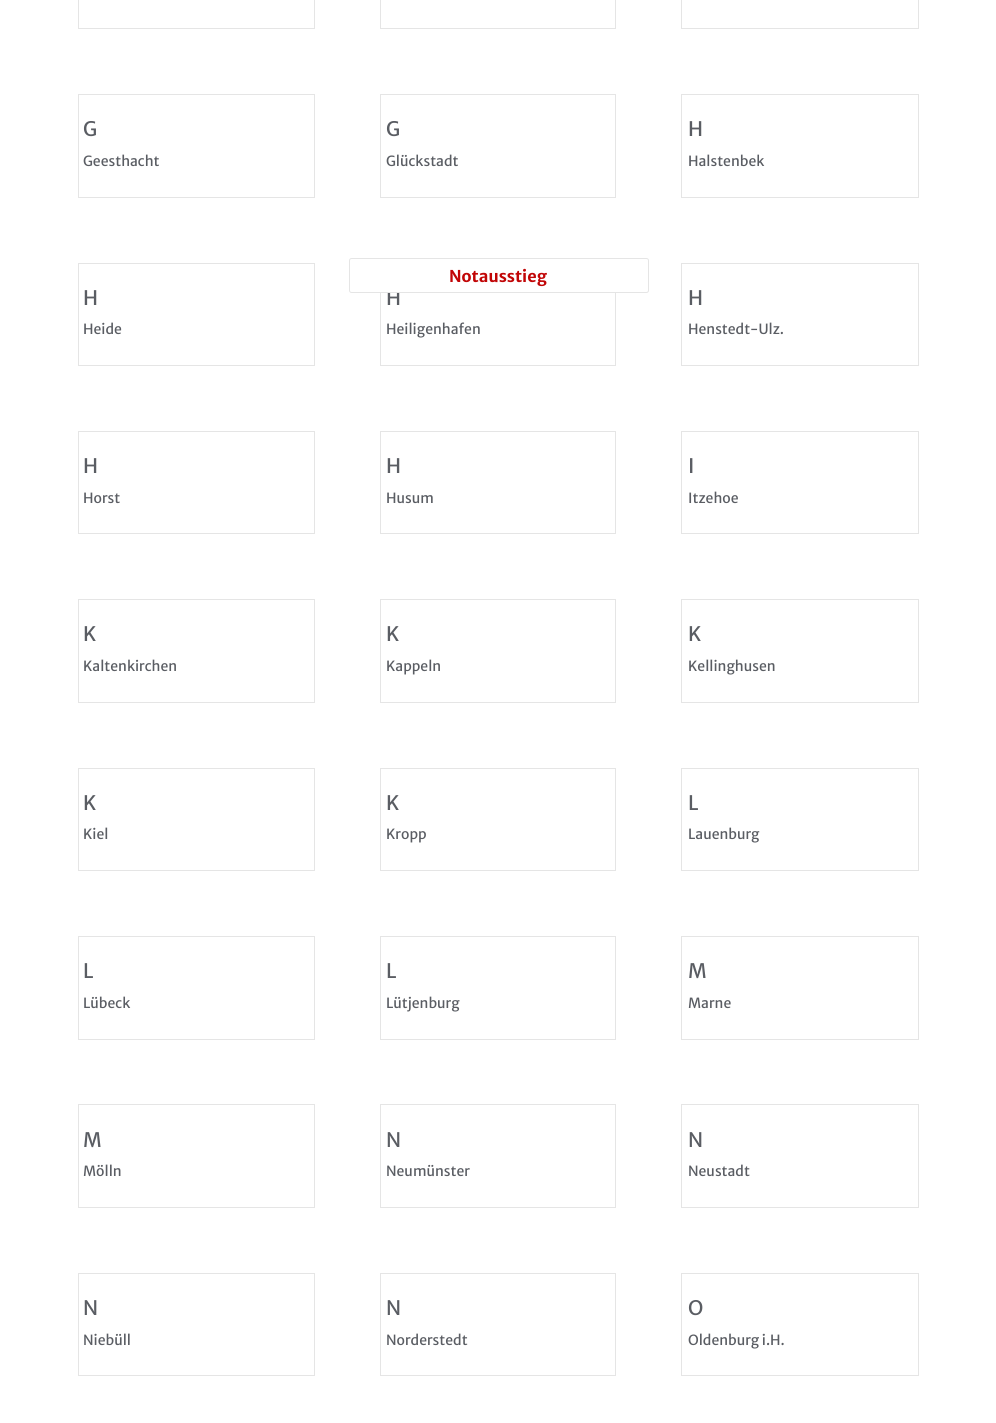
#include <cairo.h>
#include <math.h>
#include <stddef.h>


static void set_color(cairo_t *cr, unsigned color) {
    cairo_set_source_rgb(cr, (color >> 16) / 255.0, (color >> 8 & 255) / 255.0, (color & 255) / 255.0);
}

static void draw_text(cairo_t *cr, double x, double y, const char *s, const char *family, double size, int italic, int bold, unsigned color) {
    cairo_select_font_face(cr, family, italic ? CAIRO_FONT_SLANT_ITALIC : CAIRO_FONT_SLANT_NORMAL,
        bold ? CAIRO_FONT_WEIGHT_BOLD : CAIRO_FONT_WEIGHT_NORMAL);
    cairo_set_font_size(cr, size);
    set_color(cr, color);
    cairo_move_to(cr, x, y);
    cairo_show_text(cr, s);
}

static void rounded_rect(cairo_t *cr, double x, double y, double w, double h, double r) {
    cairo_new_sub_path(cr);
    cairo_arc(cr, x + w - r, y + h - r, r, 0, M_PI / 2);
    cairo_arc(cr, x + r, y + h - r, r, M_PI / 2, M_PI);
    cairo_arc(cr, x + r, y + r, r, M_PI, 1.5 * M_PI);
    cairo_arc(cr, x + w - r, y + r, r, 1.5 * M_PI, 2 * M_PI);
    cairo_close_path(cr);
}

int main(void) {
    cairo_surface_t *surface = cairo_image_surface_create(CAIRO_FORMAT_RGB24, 996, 1423);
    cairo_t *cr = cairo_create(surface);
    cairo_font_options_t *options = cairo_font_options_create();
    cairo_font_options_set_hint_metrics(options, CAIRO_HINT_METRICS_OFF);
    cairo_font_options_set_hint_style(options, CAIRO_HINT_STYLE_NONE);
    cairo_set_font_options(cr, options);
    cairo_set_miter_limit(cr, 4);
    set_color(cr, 0xFFFFFF);
    cairo_paint(cr);
    cairo_rectangle(cr, 78.5, -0.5, 236, 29);
    set_color(cr, 0xE5E5E5);
    cairo_set_line_width(cr, 1);
    cairo_stroke(cr);
    cairo_rectangle(cr, 380.5, -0.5, 235, 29);
    cairo_stroke(cr);
    cairo_rectangle(cr, 681.5, -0.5, 237, 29);
    cairo_stroke(cr);
    cairo_rectangle(cr, 78.5, 94.5, 236, 103);
    cairo_stroke(cr);
    draw_text(cr, 83, 136, "G", "Merriweather Sans", 20, 0, 0, 0x5A5D63);
    draw_text(cr, 83, 166, "Geesthacht", "Merriweather Sans", 14, 0, 0, 0x5A5D63);
    cairo_rectangle(cr, 380.5, 94.5, 235, 103);
    set_color(cr, 0xE5E5E5);
    cairo_stroke(cr);
    draw_text(cr, 386, 136, "G", "Merriweather Sans", 20, 0, 0, 0x5A5D63);
    draw_text(cr, 386, 166, "Glückstadt", "Merriweather Sans", 14, 0, 0, 0x5A5D63);
    cairo_rectangle(cr, 681.5, 94.5, 237, 103);
    set_color(cr, 0xE5E5E5);
    cairo_stroke(cr);
    draw_text(cr, 688, 136, "H", "Merriweather Sans", 20, 0, 0, 0x5A5D63);
    draw_text(cr, 688, 166, "Halstenbek", "Merriweather Sans", 14, 0, 0, 0x5A5D63);
    cairo_rectangle(cr, 78.5, 263.5, 236, 102);
    set_color(cr, 0xE5E5E5);
    cairo_stroke(cr);
    draw_text(cr, 83, 305, "H", "Merriweather Sans", 20, 0, 0, 0x5A5D63);
    draw_text(cr, 83, 334, "Heide", "Merriweather Sans", 14, 0, 0, 0x5A5D63);
    cairo_rectangle(cr, 380.5, 263.5, 235, 102);
    set_color(cr, 0xE5E5E5);
    cairo_stroke(cr);
    draw_text(cr, 386, 305, "H", "Merriweather Sans", 20, 0, 0, 0x5A5D63);
    draw_text(cr, 386, 334, "Heiligenhafen", "Merriweather Sans", 14, 0, 0, 0x5A5D63);
    cairo_rectangle(cr, 681.5, 263.5, 237, 102);
    set_color(cr, 0xE5E5E5);
    cairo_stroke(cr);
    draw_text(cr, 688, 305, "H", "Merriweather Sans", 20, 0, 0, 0x5A5D63);
    draw_text(cr, 688, 334, "Henstedt-Ulz.", "Merriweather Sans", 14, 0, 0, 0x5A5D63);
    cairo_rectangle(cr, 78.5, 431.5, 236, 102);
    set_color(cr, 0xE5E5E5);
    cairo_stroke(cr);
    draw_text(cr, 83, 473, "H", "Merriweather Sans", 20, 0, 0, 0x5A5D63);
    draw_text(cr, 83, 503, "Horst", "Merriweather Sans", 14, 0, 0, 0x5A5D63);
    cairo_rectangle(cr, 380.5, 431.5, 235, 102);
    set_color(cr, 0xE5E5E5);
    cairo_stroke(cr);
    draw_text(cr, 386, 473, "H", "Merriweather Sans", 20, 0, 0, 0x5A5D63);
    draw_text(cr, 386, 503, "Husum", "Merriweather Sans", 14, 0, 0, 0x5A5D63);
    cairo_rectangle(cr, 681.5, 431.5, 237, 102);
    set_color(cr, 0xE5E5E5);
    cairo_stroke(cr);
    draw_text(cr, 688, 473, "I", "Merriweather Sans", 20, 0, 0, 0x5A5D63);
    draw_text(cr, 688, 503, "Itzehoe", "Merriweather Sans", 14, 0, 0, 0x5A5D63);
    cairo_rectangle(cr, 78.5, 599.5, 236, 103);
    set_color(cr, 0xE5E5E5);
    cairo_stroke(cr);
    draw_text(cr, 83, 641, "K", "Merriweather Sans", 20, 0, 0, 0x5A5D63);
    draw_text(cr, 83, 671, "Kaltenkirchen", "Merriweather Sans", 14, 0, 0, 0x5A5D63);
    cairo_rectangle(cr, 380.5, 599.5, 235, 103);
    set_color(cr, 0xE5E5E5);
    cairo_stroke(cr);
    draw_text(cr, 386, 641, "K", "Merriweather Sans", 20, 0, 0, 0x5A5D63);
    draw_text(cr, 386, 671, "Kappeln", "Merriweather Sans", 14, 0, 0, 0x5A5D63);
    cairo_rectangle(cr, 681.5, 599.5, 237, 103);
    set_color(cr, 0xE5E5E5);
    cairo_stroke(cr);
    draw_text(cr, 688, 641, "K", "Merriweather Sans", 20, 0, 0, 0x5A5D63);
    draw_text(cr, 688, 671, "Kellinghusen", "Merriweather Sans", 14, 0, 0, 0x5A5D63);
    cairo_rectangle(cr, 78.5, 768.5, 236, 102);
    set_color(cr, 0xE5E5E5);
    cairo_stroke(cr);
    draw_text(cr, 83, 810, "K", "Merriweather Sans", 20, 0, 0, 0x5A5D63);
    draw_text(cr, 83, 839, "Kiel", "Merriweather Sans", 14, 0, 0, 0x5A5D63);
    cairo_rectangle(cr, 380.5, 768.5, 235, 102);
    set_color(cr, 0xE5E5E5);
    cairo_stroke(cr);
    draw_text(cr, 386, 810, "K", "Merriweather Sans", 20, 0, 0, 0x5A5D63);
    draw_text(cr, 386, 839, "Kropp", "Merriweather Sans", 14, 0, 0, 0x5A5D63);
    cairo_rectangle(cr, 681.5, 768.5, 237, 102);
    set_color(cr, 0xE5E5E5);
    cairo_stroke(cr);
    draw_text(cr, 688, 810, "L", "Merriweather Sans", 20, 0, 0, 0x5A5D63);
    draw_text(cr, 688, 839, "Lauenburg", "Merriweather Sans", 14, 0, 0, 0x5A5D63);
    cairo_rectangle(cr, 78.5, 936.5, 236, 103);
    set_color(cr, 0xE5E5E5);
    cairo_stroke(cr);
    draw_text(cr, 83, 978, "L", "Merriweather Sans", 20, 0, 0, 0x5A5D63);
    draw_text(cr, 83, 1008, "Lübeck", "Merriweather Sans", 14, 0, 0, 0x5A5D63);
    cairo_rectangle(cr, 380.5, 936.5, 235, 103);
    set_color(cr, 0xE5E5E5);
    cairo_stroke(cr);
    draw_text(cr, 386, 978, "L", "Merriweather Sans", 20, 0, 0, 0x5A5D63);
    draw_text(cr, 386, 1008, "Lütjenburg", "Merriweather Sans", 14, 0, 0, 0x5A5D63);
    cairo_rectangle(cr, 681.5, 936.5, 237, 103);
    set_color(cr, 0xE5E5E5);
    cairo_stroke(cr);
    draw_text(cr, 688, 978, "M", "Merriweather Sans", 20, 0, 0, 0x5A5D63);
    draw_text(cr, 688, 1008, "Marne", "Merriweather Sans", 14, 0, 0, 0x5A5D63);
    cairo_rectangle(cr, 78.5, 1104.5, 236, 103);
    set_color(cr, 0xE5E5E5);
    cairo_stroke(cr);
    draw_text(cr, 83, 1147, "M", "Merriweather Sans", 20, 0, 0, 0x5A5D63);
    draw_text(cr, 83, 1176, "Mölln", "Merriweather Sans", 14, 0, 0, 0x5A5D63);
    cairo_rectangle(cr, 380.5, 1104.5, 235, 103);
    set_color(cr, 0xE5E5E5);
    cairo_stroke(cr);
    draw_text(cr, 386, 1147, "N", "Merriweather Sans", 20, 0, 0, 0x5A5D63);
    draw_text(cr, 386, 1176, "Neumünster", "Merriweather Sans", 14, 0, 0, 0x5A5D63);
    cairo_rectangle(cr, 681.5, 1104.5, 237, 103);
    set_color(cr, 0xE5E5E5);
    cairo_stroke(cr);
    draw_text(cr, 688, 1147, "N", "Merriweather Sans", 20, 0, 0, 0x5A5D63);
    draw_text(cr, 688, 1176, "Neustadt", "Merriweather Sans", 14, 0, 0, 0x5A5D63);
    cairo_rectangle(cr, 78.5, 1273.5, 236, 102);
    set_color(cr, 0xE5E5E5);
    cairo_stroke(cr);
    draw_text(cr, 83, 1315, "N", "Merriweather Sans", 20, 0, 0, 0x5A5D63);
    draw_text(cr, 83, 1345, "Niebüll", "Merriweather Sans", 14, 0, 0, 0x5A5D63);
    cairo_rectangle(cr, 380.5, 1273.5, 235, 102);
    set_color(cr, 0xE5E5E5);
    cairo_stroke(cr);
    draw_text(cr, 386, 1315, "N", "Merriweather Sans", 20, 0, 0, 0x5A5D63);
    draw_text(cr, 386, 1345, "Norderstedt", "Merriweather Sans", 14, 0, 0, 0x5A5D63);
    cairo_rectangle(cr, 681.5, 1273.5, 237, 102);
    set_color(cr, 0xE5E5E5);
    cairo_stroke(cr);
    draw_text(cr, 688, 1315, "O", "Merriweather Sans", 20, 0, 0, 0x5A5D63);
    draw_text(cr, 688, 1345, "Oldenburg i.H.", "Merriweather Sans", 14, 0, 0, 0x5A5D63);
    set_color(cr, 0xFFFFFF);
    rounded_rect(cr, 349.5, 258.5, 299, 34, 2);
    cairo_fill_preserve(cr);
    set_color(cr, 0xE5E5E5);
    cairo_stroke(cr);
    draw_text(cr, 449, 282, "Notausstieg", "Merriweather Sans", 16.25, 0, 1, 0xC10506);
    cairo_surface_write_to_png(surface, "output.png");
    cairo_font_options_destroy(options);
    cairo_destroy(cr);
    cairo_surface_destroy(surface);
    return 0;
}
